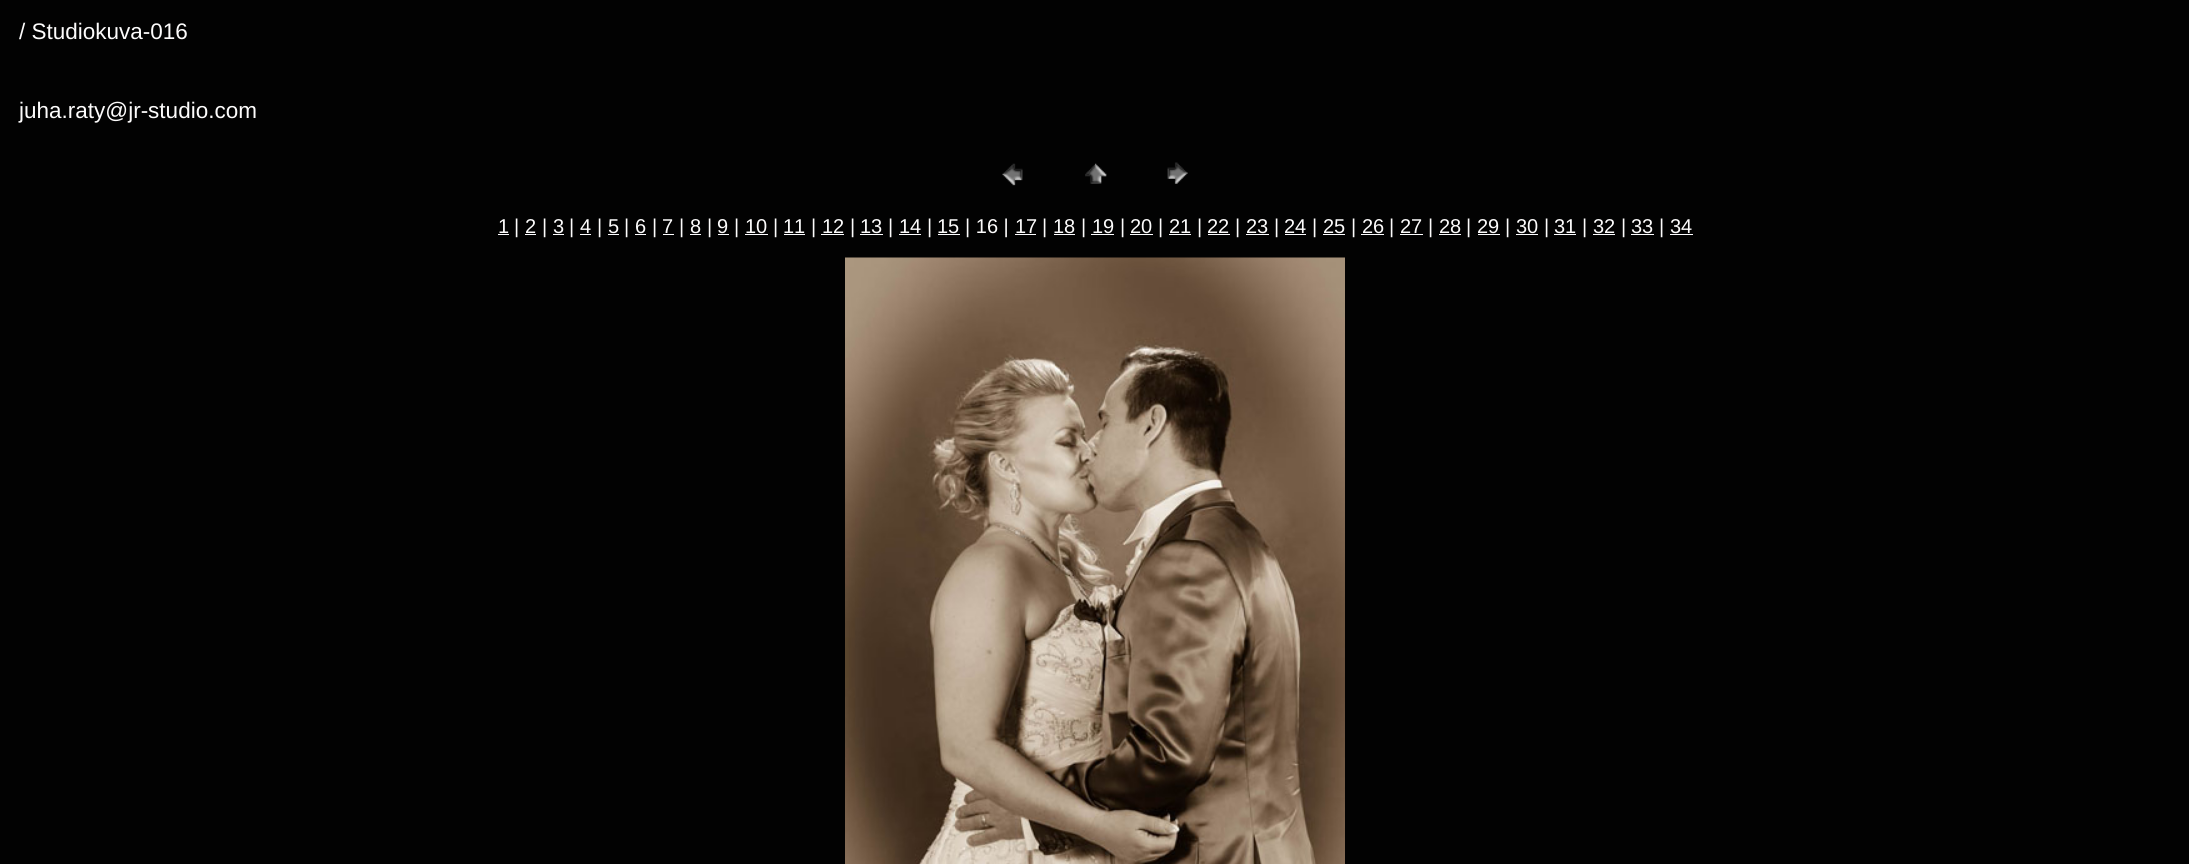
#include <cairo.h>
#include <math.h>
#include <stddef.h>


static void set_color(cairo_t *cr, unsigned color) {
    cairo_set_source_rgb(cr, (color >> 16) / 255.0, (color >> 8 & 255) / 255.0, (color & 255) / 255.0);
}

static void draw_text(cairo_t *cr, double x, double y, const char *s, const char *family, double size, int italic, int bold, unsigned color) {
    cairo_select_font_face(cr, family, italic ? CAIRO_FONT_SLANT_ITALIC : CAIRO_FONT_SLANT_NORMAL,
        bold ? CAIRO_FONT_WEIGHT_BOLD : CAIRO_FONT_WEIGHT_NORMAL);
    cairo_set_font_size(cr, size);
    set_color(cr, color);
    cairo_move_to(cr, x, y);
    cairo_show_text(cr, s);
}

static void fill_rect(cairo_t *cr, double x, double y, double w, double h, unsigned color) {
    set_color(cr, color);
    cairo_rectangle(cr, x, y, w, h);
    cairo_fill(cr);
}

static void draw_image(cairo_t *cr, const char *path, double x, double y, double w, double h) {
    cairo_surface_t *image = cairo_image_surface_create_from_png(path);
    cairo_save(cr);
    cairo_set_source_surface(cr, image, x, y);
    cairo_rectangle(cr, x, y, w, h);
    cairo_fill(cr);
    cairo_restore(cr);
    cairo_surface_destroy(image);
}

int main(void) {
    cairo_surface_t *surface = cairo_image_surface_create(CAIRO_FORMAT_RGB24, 2189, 864);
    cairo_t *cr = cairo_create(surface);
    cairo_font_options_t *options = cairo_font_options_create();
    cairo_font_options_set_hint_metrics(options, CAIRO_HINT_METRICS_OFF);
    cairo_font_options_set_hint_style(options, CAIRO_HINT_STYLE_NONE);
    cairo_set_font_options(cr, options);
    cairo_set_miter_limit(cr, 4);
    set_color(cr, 0x020202);
    cairo_paint(cr);
    draw_text(cr, 19, 39, "/ Studiokuva-016", "Liberation Sans", 22.5, 0, 0, 0xFDFCFC);
    draw_text(cr, 19, 118, "juha.raty@jr-studio.com", "Liberation Sans", 22.5, 0, 0, 0xFDFCFC);
    draw_image(cr, "assets/img1.png", 1002, 163, 21, 23);
    draw_image(cr, "assets/img2.png", 1085, 163, 22, 21);
    draw_image(cr, "assets/img3.png", 1167, 162, 21, 22);
    draw_text(cr, 498, 233, "1", "Liberation Sans", 20, 0, 0, 0xFDFCFC);
    fill_rect(cr, 498, 234, 11, 1, 0xFDFDFF);
    draw_text(cr, 514, 233, "|", "Liberation Sans", 20, 0, 0, 0xFDFCFC);
    draw_text(cr, 525, 233, "2", "Liberation Sans", 20, 0, 0, 0xFDFCFC);
    fill_rect(cr, 525, 234, 11, 1, 0xFDFDFF);
    draw_text(cr, 542, 233, "|", "Liberation Sans", 20, 0, 0, 0xFDFCFC);
    draw_text(cr, 553, 233, "3", "Liberation Sans", 20, 0, 0, 0xFDFCFC);
    fill_rect(cr, 553, 234, 11, 1, 0xFDFDFF);
    draw_text(cr, 569, 233, "|", "Liberation Sans", 20, 0, 0, 0xFDFCFC);
    draw_text(cr, 580, 233, "4", "Liberation Sans", 20, 0, 0, 0xFDFCFC);
    fill_rect(cr, 580, 234, 11, 1, 0xFDFDFF);
    draw_text(cr, 597, 233, "|", "Liberation Sans", 20, 0, 0, 0xFDFCFC);
    draw_text(cr, 608, 233, "5", "Liberation Sans", 20, 0, 0, 0xFDFCFC);
    fill_rect(cr, 608, 234, 11, 1, 0xFDFDFF);
    draw_text(cr, 624, 233, "|", "Liberation Sans", 20, 0, 0, 0xFDFCFC);
    draw_text(cr, 635, 233, "6", "Liberation Sans", 20, 0, 0, 0xFDFCFC);
    fill_rect(cr, 635, 234, 11, 1, 0xFDFDFF);
    draw_text(cr, 652, 233, "|", "Liberation Sans", 20, 0, 0, 0xFDFCFC);
    draw_text(cr, 662, 233, "7", "Liberation Sans", 20, 0, 0, 0xFDFCFC);
    fill_rect(cr, 663, 234, 11, 1, 0xFDFDFF);
    draw_text(cr, 679, 233, "|", "Liberation Sans", 20, 0, 0, 0xFDFCFC);
    draw_text(cr, 690, 233, "8", "Liberation Sans", 20, 0, 0, 0xFDFCFC);
    fill_rect(cr, 690, 234, 11, 1, 0xFDFDFF);
    draw_text(cr, 707, 233, "|", "Liberation Sans", 20, 0, 0, 0xFDFCFC);
    draw_text(cr, 717, 233, "9", "Liberation Sans", 20, 0, 0, 0xFDFCFC);
    fill_rect(cr, 718, 234, 11, 1, 0xFDFDFF);
    draw_text(cr, 734, 233, "|", "Liberation Sans", 20, 0, 0, 0xFDFCFC);
    draw_text(cr, 745, 233, "10", "Liberation Sans", 20, 0, 0, 0xFDFCFC);
    fill_rect(cr, 745, 234, 23, 1, 0xFDFDFF);
    draw_text(cr, 773, 233, "|", "Liberation Sans", 20, 0, 0, 0xFDFCFC);
    draw_text(cr, 783, 233, "11", "Liberation Sans", 20, 0, 0, 0xFDFCFC);
    fill_rect(cr, 784, 234, 21, 1, 0xFDFDFF);
    draw_text(cr, 811, 233, "|", "Liberation Sans", 20, 0, 0, 0xFDFCFC);
    draw_text(cr, 822, 233, "12", "Liberation Sans", 20, 0, 0, 0xFDFCFC);
    fill_rect(cr, 821, 234, 23, 1, 0xFDFDFF);
    draw_text(cr, 850, 233, "|", "Liberation Sans", 20, 0, 0, 0xFDFCFC);
    draw_text(cr, 860, 233, "13", "Liberation Sans", 20, 0, 0, 0xFDFCFC);
    fill_rect(cr, 860, 234, 23, 1, 0xFDFDFF);
    draw_text(cr, 888, 233, "|", "Liberation Sans", 20, 0, 0, 0xFDFCFC);
    draw_text(cr, 899, 233, "14", "Liberation Sans", 20, 0, 0, 0xFDFCFC);
    fill_rect(cr, 899, 234, 22, 1, 0xFDFDFF);
    draw_text(cr, 927, 233, "|", "Liberation Sans", 20, 0, 0, 0xFDFCFC);
    draw_text(cr, 937, 233, "15", "Liberation Sans", 20, 0, 0, 0xFDFCFC);
    fill_rect(cr, 938, 234, 22, 1, 0xFDFDFF);
    draw_text(cr, 965, 233, "| 16 |", "Liberation Sans", 20, 0, 0, 0xFDFCFC);
    draw_text(cr, 1015, 233, "17", "Liberation Sans", 20, 0, 0, 0xFDFCFC);
    fill_rect(cr, 1015, 234, 21, 1, 0xFDFDFF);
    draw_text(cr, 1042, 233, "|", "Liberation Sans", 20, 0, 0, 0xFDFCFC);
    draw_text(cr, 1053, 233, "18", "Liberation Sans", 20, 0, 0, 0xFDFCFC);
    fill_rect(cr, 1054, 234, 21, 1, 0xFDFDFF);
    draw_text(cr, 1081, 233, "|", "Liberation Sans", 20, 0, 0, 0xFDFCFC);
    draw_text(cr, 1092, 233, "19", "Liberation Sans", 20, 0, 0, 0xFDFCFC);
    fill_rect(cr, 1091, 234, 23, 1, 0xFDFDFF);
    draw_text(cr, 1120, 233, "|", "Liberation Sans", 20, 0, 0, 0xFDFCFC);
    draw_text(cr, 1130, 233, "20", "Liberation Sans", 20, 0, 0, 0xFDFCFC);
    fill_rect(cr, 1130, 234, 23, 1, 0xFDFDFF);
    draw_text(cr, 1158, 233, "|", "Liberation Sans", 20, 0, 0, 0xFDFCFC);
    draw_text(cr, 1169, 233, "21", "Liberation Sans", 20, 0, 0, 0xFDFCFC);
    fill_rect(cr, 1169, 234, 22, 1, 0xFDFDFF);
    draw_text(cr, 1197, 233, "|", "Liberation Sans", 20, 0, 0, 0xFDFCFC);
    draw_text(cr, 1207, 233, "22", "Liberation Sans", 20, 0, 0, 0xFDFCFC);
    fill_rect(cr, 1208, 234, 22, 1, 0xFDFDFF);
    draw_text(cr, 1235, 233, "|", "Liberation Sans", 20, 0, 0, 0xFDFCFC);
    draw_text(cr, 1246, 233, "23", "Liberation Sans", 20, 0, 0, 0xFDFCFC);
    fill_rect(cr, 1246, 234, 23, 1, 0xFDFDFF);
    draw_text(cr, 1274, 233, "|", "Liberation Sans", 20, 0, 0, 0xFDFCFC);
    draw_text(cr, 1284, 233, "24", "Liberation Sans", 20, 0, 0, 0xFDFCFC);
    fill_rect(cr, 1285, 234, 21, 1, 0xFDFDFF);
    draw_text(cr, 1312, 233, "|", "Liberation Sans", 20, 0, 0, 0xFDFCFC);
    draw_text(cr, 1323, 233, "25", "Liberation Sans", 20, 0, 0, 0xFDFCFC);
    fill_rect(cr, 1323, 234, 22, 1, 0xFDFDFF);
    draw_text(cr, 1351, 233, "|", "Liberation Sans", 20, 0, 0, 0xFDFCFC);
    draw_text(cr, 1362, 233, "26", "Liberation Sans", 20, 0, 0, 0xFDFCFC);
    fill_rect(cr, 1361, 234, 23, 1, 0xFDFDFF);
    draw_text(cr, 1389, 233, "|", "Liberation Sans", 20, 0, 0, 0xFDFCFC);
    draw_text(cr, 1400, 233, "27", "Liberation Sans", 20, 0, 0, 0xFDFCFC);
    fill_rect(cr, 1400, 234, 23, 1, 0xFDFDFF);
    draw_text(cr, 1428, 233, "|", "Liberation Sans", 20, 0, 0, 0xFDFCFC);
    draw_text(cr, 1439, 233, "28", "Liberation Sans", 20, 0, 0, 0xFDFCFC);
    fill_rect(cr, 1439, 234, 22, 1, 0xFDFDFF);
    draw_text(cr, 1466, 233, "|", "Liberation Sans", 20, 0, 0, 0xFDFCFC);
    draw_text(cr, 1477, 233, "29", "Liberation Sans", 20, 0, 0, 0xFDFCFC);
    fill_rect(cr, 1478, 234, 22, 1, 0xFDFDFF);
    draw_text(cr, 1505, 233, "|", "Liberation Sans", 20, 0, 0, 0xFDFCFC);
    draw_text(cr, 1516, 233, "30", "Liberation Sans", 20, 0, 0, 0xFDFCFC);
    fill_rect(cr, 1516, 234, 22, 1, 0xFDFDFF);
    draw_text(cr, 1544, 233, "|", "Liberation Sans", 20, 0, 0, 0xFDFCFC);
    draw_text(cr, 1554, 233, "31", "Liberation Sans", 20, 0, 0, 0xFDFCFC);
    fill_rect(cr, 1554, 234, 22, 1, 0xFDFDFF);
    draw_text(cr, 1582, 233, "|", "Liberation Sans", 20, 0, 0, 0xFDFCFC);
    draw_text(cr, 1593, 233, "32", "Liberation Sans", 20, 0, 0, 0xFDFCFC);
    fill_rect(cr, 1593, 234, 22, 1, 0xFDFDFF);
    draw_text(cr, 1621, 233, "|", "Liberation Sans", 20, 0, 0, 0xFDFCFC);
    draw_text(cr, 1631, 233, "33", "Liberation Sans", 20, 0, 0, 0xFDFCFC);
    fill_rect(cr, 1631, 234, 23, 1, 0xFDFDFF);
    draw_text(cr, 1659, 233, "|", "Liberation Sans", 20, 0, 0, 0xFDFCFC);
    draw_text(cr, 1670, 233, "34", "Liberation Sans", 20, 0, 0, 0xFDFCFC);
    fill_rect(cr, 1670, 234, 23, 1, 0xFDFDFF);
    draw_image(cr, "assets/img4.png", 845, 257, 500, 607);
    cairo_surface_write_to_png(surface, "output.png");
    cairo_font_options_destroy(options);
    cairo_destroy(cr);
    cairo_surface_destroy(surface);
    return 0;
}
